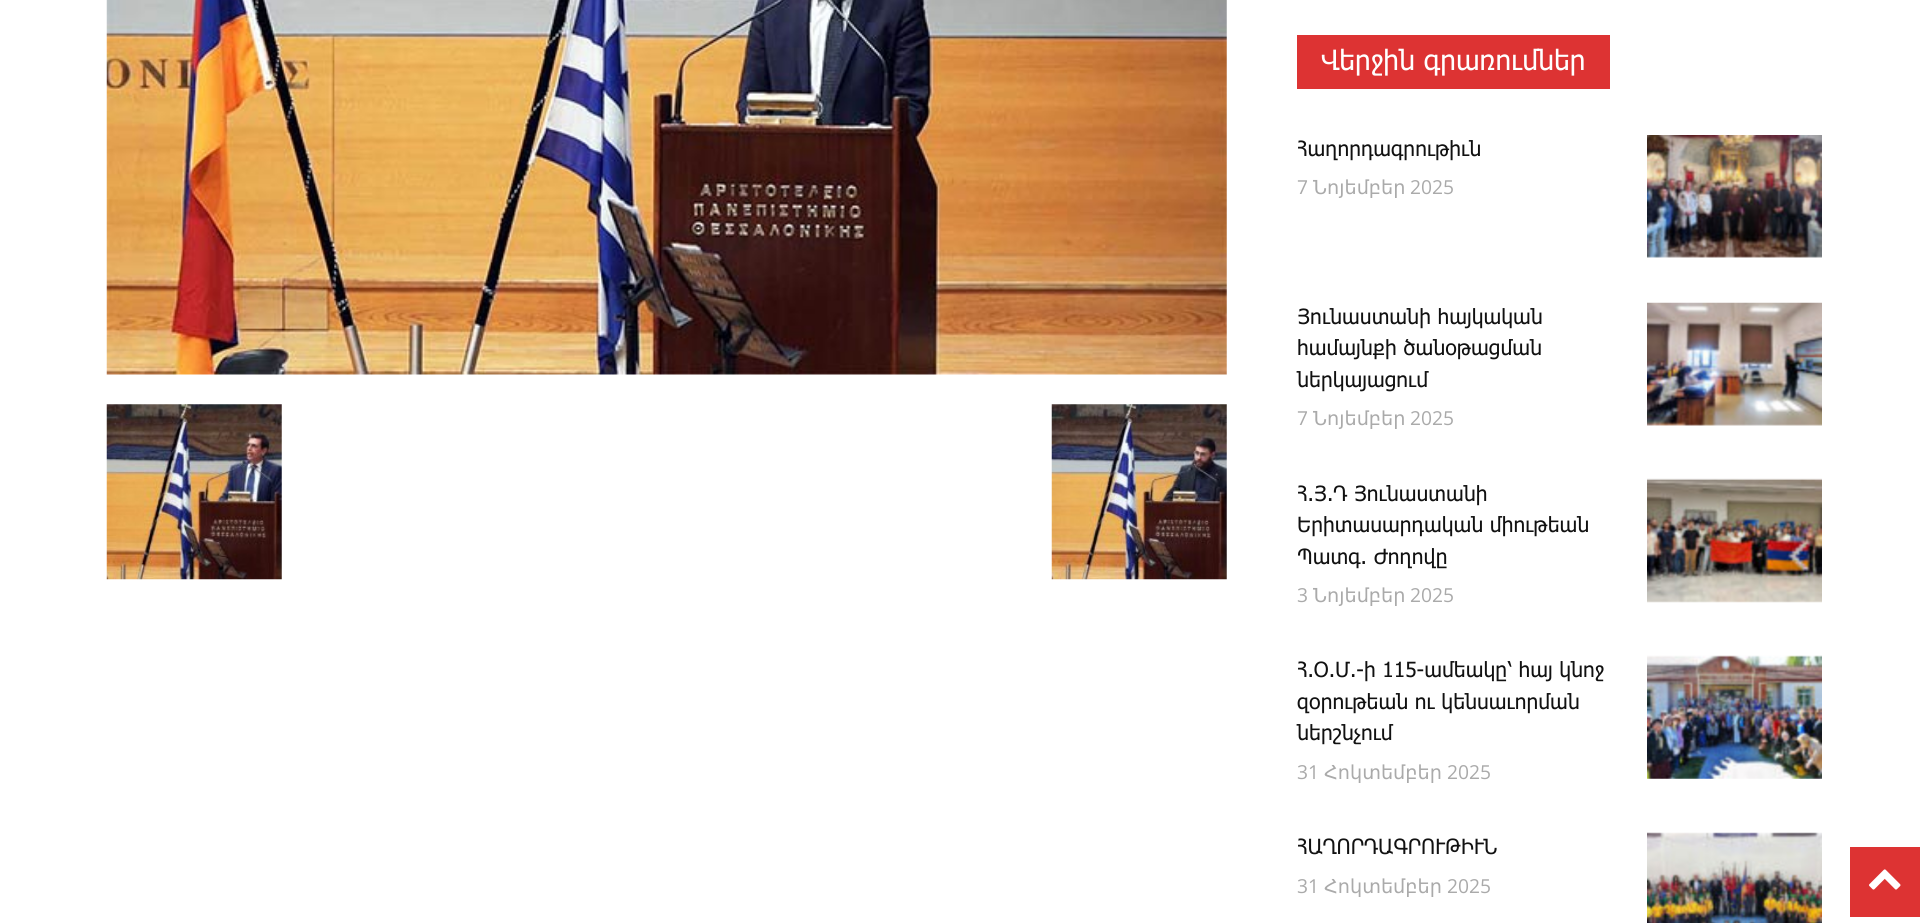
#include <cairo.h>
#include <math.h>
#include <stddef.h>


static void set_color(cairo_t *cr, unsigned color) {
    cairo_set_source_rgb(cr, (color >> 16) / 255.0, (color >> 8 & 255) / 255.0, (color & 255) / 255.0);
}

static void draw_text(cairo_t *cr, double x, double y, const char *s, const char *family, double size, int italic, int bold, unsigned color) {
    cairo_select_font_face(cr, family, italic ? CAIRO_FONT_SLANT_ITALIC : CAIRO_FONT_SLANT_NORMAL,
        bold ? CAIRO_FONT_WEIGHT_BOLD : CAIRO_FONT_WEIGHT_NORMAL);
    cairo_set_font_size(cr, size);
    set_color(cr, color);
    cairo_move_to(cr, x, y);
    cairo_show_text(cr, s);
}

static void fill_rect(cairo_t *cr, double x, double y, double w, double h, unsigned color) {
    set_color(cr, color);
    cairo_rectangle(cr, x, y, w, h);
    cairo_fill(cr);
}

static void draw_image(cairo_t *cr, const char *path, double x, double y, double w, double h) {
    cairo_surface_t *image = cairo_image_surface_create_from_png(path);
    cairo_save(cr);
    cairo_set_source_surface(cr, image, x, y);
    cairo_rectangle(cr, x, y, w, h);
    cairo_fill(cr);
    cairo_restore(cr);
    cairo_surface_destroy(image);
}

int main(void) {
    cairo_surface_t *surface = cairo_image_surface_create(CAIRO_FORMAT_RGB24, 1928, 923);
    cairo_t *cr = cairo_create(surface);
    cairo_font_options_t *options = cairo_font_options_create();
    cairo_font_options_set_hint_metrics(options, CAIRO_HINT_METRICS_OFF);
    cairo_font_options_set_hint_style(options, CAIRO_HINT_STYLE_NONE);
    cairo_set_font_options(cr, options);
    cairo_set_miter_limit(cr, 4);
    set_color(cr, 0xFFFFFF);
    cairo_paint(cr);
    draw_image(cr, "assets/img1.png", 106, 0, 1121, 375);
    draw_image(cr, "assets/img2.png", 106, 404, 176, 176);
    draw_image(cr, "assets/img3.png", 1051, 404, 176, 176);
    fill_rect(cr, 1297, 35, 313, 54, 0xDD3333);
    draw_text(cr, 1321, 70, "Վերջին գրառումներ", "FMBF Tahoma", 28, 0, 0, 0xFFFFFF);
    draw_text(cr, 1297, 156, "Հաղորդագրութիւն", "FMBF Tahoma", 21, 0, 0, 0x111111);
    draw_text(cr, 1297, 194, "7", "Open Sans", 19.25, 0, 0, 0xAAAAAA);
    draw_text(cr, 1313, 194, "Նոյեմբեր", "DejaVu Sans", 19.25, 0, 0, 0xAAAAAA);
    draw_text(cr, 1410, 194, "2025", "Open Sans", 19.25, 0, 0, 0xAAAAAA);
    draw_image(cr, "assets/img4.png", 1647, 135, 175, 123);
    draw_text(cr, 1297, 324, "Յունաստանի հայկական", "FMBF Tahoma", 21, 0, 0, 0x111111);
    draw_text(cr, 1297, 355, "համայնքի ծանօթացման", "FMBF Tahoma", 21, 0, 0, 0x111111);
    draw_text(cr, 1297, 387, "ներկայացում", "FMBF Tahoma", 21, 0, 0, 0x111111);
    draw_text(cr, 1297, 425, "7", "Open Sans", 19.25, 0, 0, 0xAAAAAA);
    draw_text(cr, 1313, 425, "Նոյեմբեր", "DejaVu Sans", 19.25, 0, 0, 0xAAAAAA);
    draw_text(cr, 1410, 425, "2025", "Open Sans", 19.25, 0, 0, 0xAAAAAA);
    draw_image(cr, "assets/img5.png", 1647, 302, 175, 124);
    draw_text(cr, 1297, 501, "Հ.Յ.Դ Յունաստանի", "FMBF Tahoma", 21, 0, 0, 0x111111);
    draw_text(cr, 1297, 532, "Երիտասարդական միութեան", "FMBF Tahoma", 21, 0, 0, 0x111111);
    draw_text(cr, 1297, 564, "Պատգ. Ժողովը", "FMBF Tahoma", 21, 0, 0, 0x111111);
    draw_text(cr, 1297, 602, "3", "Open Sans", 19.25, 0, 0, 0xAAAAAA);
    draw_text(cr, 1313, 602, "Նոյեմբեր", "DejaVu Sans", 19.25, 0, 0, 0xAAAAAA);
    draw_text(cr, 1410, 602, "2025", "Open Sans", 19.25, 0, 0, 0xAAAAAA);
    draw_image(cr, "assets/img6.png", 1647, 478, 175, 125);
    draw_text(cr, 1297, 677, "Հ.Օ.Մ.-ի 115-ամեակը՝ հայ կնոջ", "FMBF Tahoma", 21, 0, 0, 0x111111);
    draw_text(cr, 1297, 709, "զօրութեան ու կենսաւորման", "FMBF Tahoma", 21, 0, 0, 0x111111);
    draw_text(cr, 1297, 740, "ներշնչում", "FMBF Tahoma", 21, 0, 0, 0x111111);
    draw_text(cr, 1297, 779, "31", "Open Sans", 19.25, 0, 0, 0xAAAAAA);
    draw_text(cr, 1324, 779, "Հոկտեմբեր", "DejaVu Sans", 19.25, 0, 0, 0xAAAAAA);
    draw_text(cr, 1447, 779, "2025", "Open Sans", 19.25, 0, 0, 0xAAAAAA);
    draw_image(cr, "assets/img7.png", 1647, 655, 175, 124);
    draw_text(cr, 1297, 854, "ՀԱՂՈՐԴԱԳՐՈՒԹԻՒՆ", "FMBF Tahoma", 21, 0, 0, 0x111111);
    draw_text(cr, 1297, 893, "31", "Open Sans", 19.25, 0, 0, 0xAAAAAA);
    draw_text(cr, 1324, 893, "Հոկտեմբեր", "DejaVu Sans", 19.25, 0, 0, 0xAAAAAA);
    draw_text(cr, 1447, 893, "2025", "Open Sans", 19.25, 0, 0, 0xAAAAAA);
    draw_image(cr, "assets/img8.png", 1647, 832, 175, 91);
    fill_rect(cr, 1850, 847, 70, 70, 0xDD3333);
    draw_image(cr, "assets/img9.png", 1869, 869, 32, 21);
    cairo_surface_write_to_png(surface, "output.png");
    cairo_font_options_destroy(options);
    cairo_destroy(cr);
    cairo_surface_destroy(surface);
    return 0;
}
